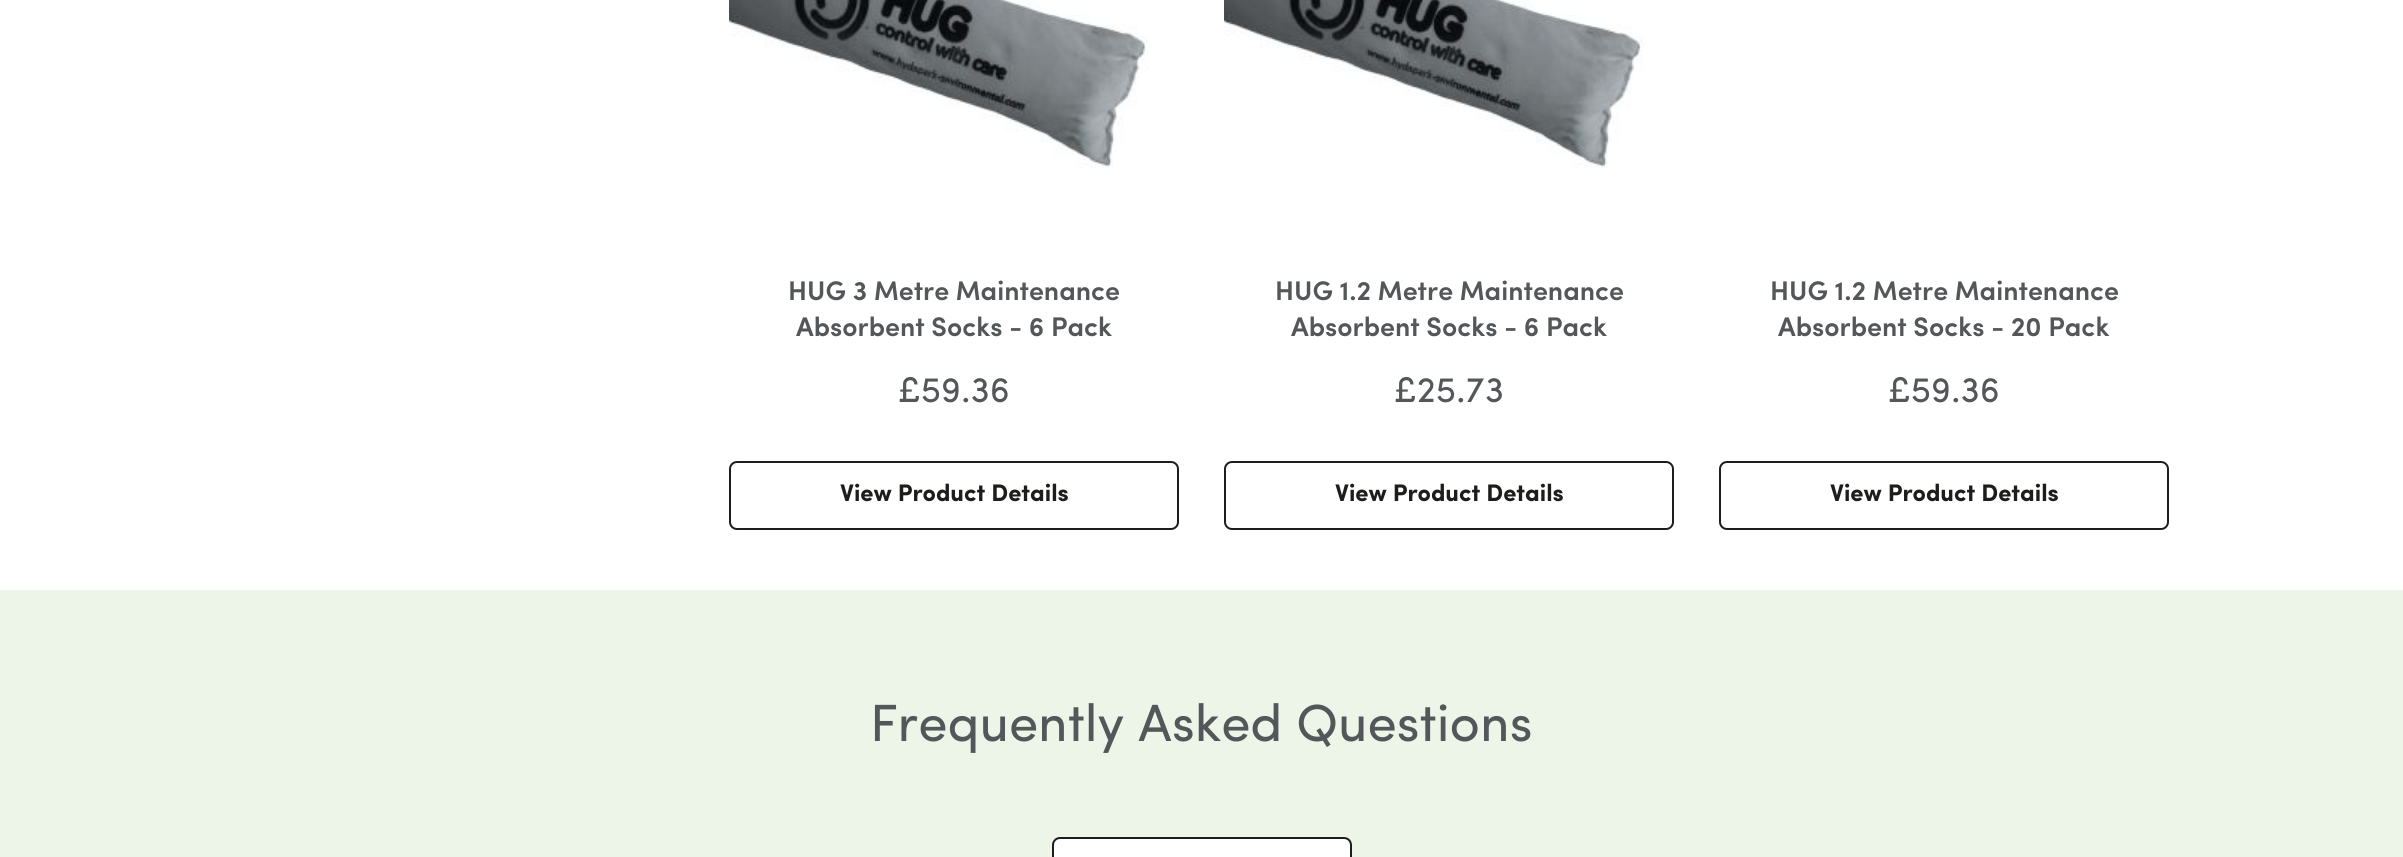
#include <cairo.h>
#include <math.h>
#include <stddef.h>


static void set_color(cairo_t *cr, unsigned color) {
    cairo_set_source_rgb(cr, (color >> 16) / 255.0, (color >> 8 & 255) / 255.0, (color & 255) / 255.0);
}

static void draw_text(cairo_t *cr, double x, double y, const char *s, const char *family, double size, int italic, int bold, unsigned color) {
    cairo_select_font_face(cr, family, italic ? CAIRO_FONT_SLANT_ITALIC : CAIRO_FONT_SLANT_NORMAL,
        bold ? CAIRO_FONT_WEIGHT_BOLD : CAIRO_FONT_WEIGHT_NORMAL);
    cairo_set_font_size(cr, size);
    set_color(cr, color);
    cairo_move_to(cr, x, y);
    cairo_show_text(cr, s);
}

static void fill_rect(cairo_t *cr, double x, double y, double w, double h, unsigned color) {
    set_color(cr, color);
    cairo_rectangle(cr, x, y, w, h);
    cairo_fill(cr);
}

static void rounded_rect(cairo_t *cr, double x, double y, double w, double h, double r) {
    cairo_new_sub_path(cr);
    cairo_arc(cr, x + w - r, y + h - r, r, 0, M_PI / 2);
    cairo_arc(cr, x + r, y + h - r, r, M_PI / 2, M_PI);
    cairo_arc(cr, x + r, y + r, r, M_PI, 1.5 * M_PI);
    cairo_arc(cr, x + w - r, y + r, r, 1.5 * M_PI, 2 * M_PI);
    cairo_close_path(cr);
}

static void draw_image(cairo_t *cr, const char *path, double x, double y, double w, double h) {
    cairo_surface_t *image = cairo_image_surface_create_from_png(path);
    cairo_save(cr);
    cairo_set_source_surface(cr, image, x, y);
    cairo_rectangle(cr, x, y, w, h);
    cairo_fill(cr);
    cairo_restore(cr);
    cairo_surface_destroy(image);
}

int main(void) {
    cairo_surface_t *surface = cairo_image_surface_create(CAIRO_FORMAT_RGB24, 2403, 857);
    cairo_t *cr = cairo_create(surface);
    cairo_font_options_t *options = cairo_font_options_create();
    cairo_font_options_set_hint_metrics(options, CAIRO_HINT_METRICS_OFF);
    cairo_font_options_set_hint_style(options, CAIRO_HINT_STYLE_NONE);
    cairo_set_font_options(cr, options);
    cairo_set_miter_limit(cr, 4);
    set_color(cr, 0xFFFFFF);
    cairo_paint(cr);
    draw_image(cr, "assets/img1.png", 729, 0, 420, 168);
    draw_text(cr, 788, 300, "HUG 3 Metre Maintenance", "Sofia SemiBold", 27, 0, 0, 0x535759);
    draw_text(cr, 796, 336, "Absorbent Socks - 6 Pack", "Sofia SemiBold", 27, 0, 0, 0x535759);
    draw_text(cr, 898, 402, "£59.36", "Sofia", 36, 0, 0, 0x535759);
    rounded_rect(cr, 730, 462, 448, 67, 7);
    set_color(cr, 0x1D1D1B);
    cairo_stroke(cr);
    draw_text(cr, 840, 501, "View Product Details", "Sofia", 24, 0, 1, 0x1D1D1B);
    draw_image(cr, "assets/img2.png", 1224, 0, 420, 168);
    draw_text(cr, 1275, 300, "HUG 1.2 Metre Maintenance", "Sofia SemiBold", 27, 0, 0, 0x535759);
    draw_text(cr, 1291, 336, "Absorbent Socks - 6 Pack", "Sofia SemiBold", 27, 0, 0, 0x535759);
    draw_text(cr, 1394, 402, "£25.73", "Sofia", 36, 0, 0, 0x535759);
    rounded_rect(cr, 1225, 462, 448, 67, 7);
    set_color(cr, 0x1D1D1B);
    cairo_stroke(cr);
    draw_text(cr, 1335, 501, "View Product Details", "Sofia", 24, 0, 1, 0x1D1D1B);
    draw_text(cr, 1770, 300, "HUG 1.2 Metre Maintenance", "Sofia SemiBold", 27, 0, 0, 0x535759);
    draw_text(cr, 1778, 336, "Absorbent Socks - 20 Pack", "Sofia SemiBold", 27, 0, 0, 0x535759);
    draw_text(cr, 1888, 402, "£59.36", "Sofia", 36, 0, 0, 0x535759);
    rounded_rect(cr, 1720, 462, 448, 67, 7);
    set_color(cr, 0x1D1D1B);
    cairo_stroke(cr);
    draw_text(cr, 1830, 501, "View Product Details", "Sofia", 24, 0, 1, 0x1D1D1B);
    fill_rect(cr, 0, 590, 2403, 267, 0xEDF5E9);
    draw_text(cr, 870, 741, "Frequently Asked Questions", "Sofia", 52.5, 0, 0, 0x535759);
    set_color(cr, 0xFFFFFF);
    rounded_rect(cr, 1053, 838, 298, 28, 7);
    cairo_fill_preserve(cr);
    set_color(cr, 0x1D1D1B);
    cairo_stroke(cr);
    cairo_surface_write_to_png(surface, "output.png");
    cairo_font_options_destroy(options);
    cairo_destroy(cr);
    cairo_surface_destroy(surface);
    return 0;
}
